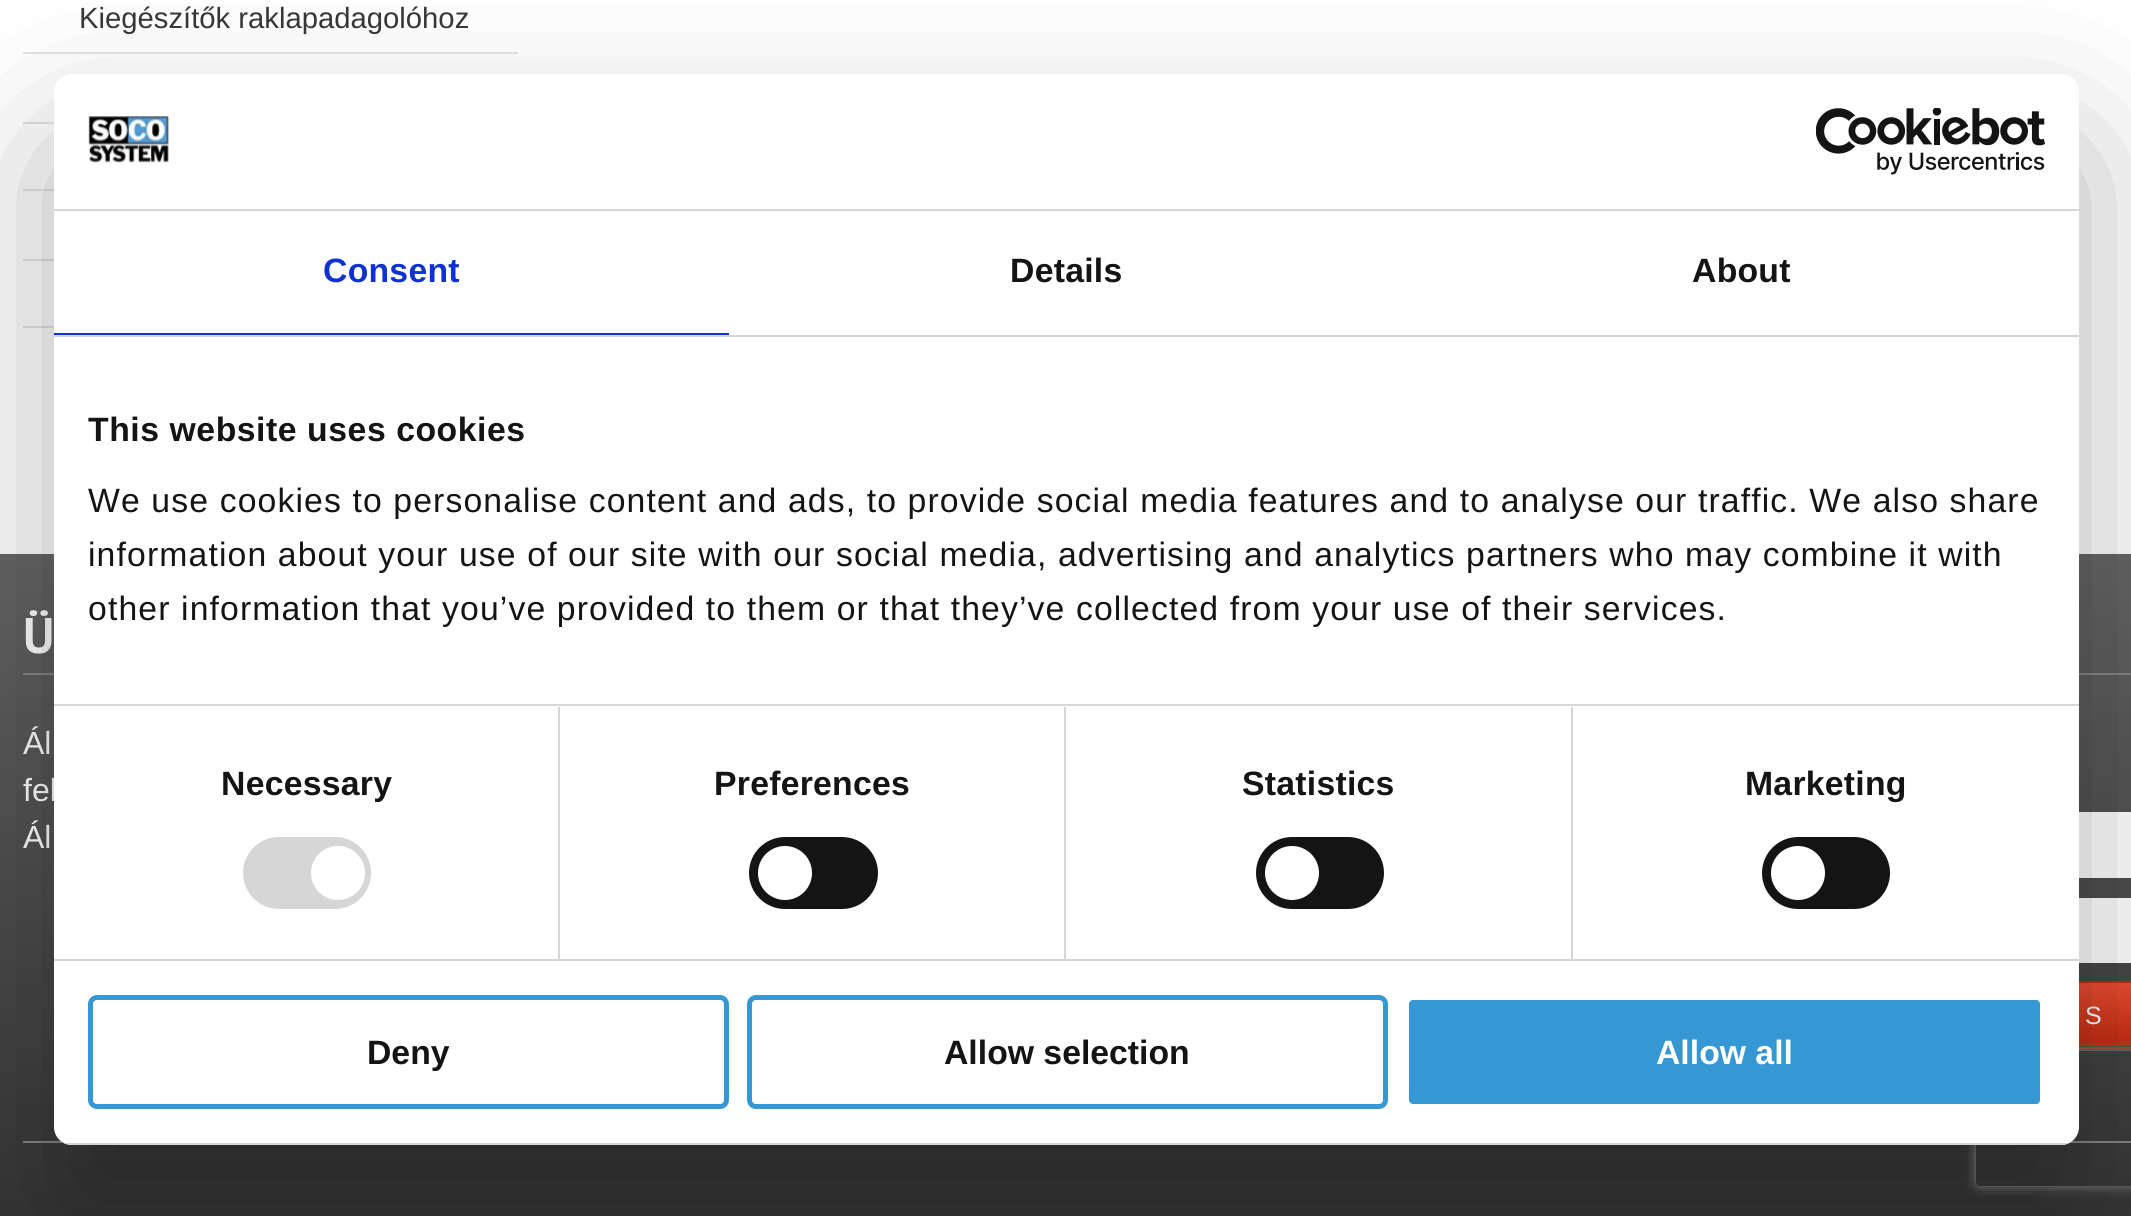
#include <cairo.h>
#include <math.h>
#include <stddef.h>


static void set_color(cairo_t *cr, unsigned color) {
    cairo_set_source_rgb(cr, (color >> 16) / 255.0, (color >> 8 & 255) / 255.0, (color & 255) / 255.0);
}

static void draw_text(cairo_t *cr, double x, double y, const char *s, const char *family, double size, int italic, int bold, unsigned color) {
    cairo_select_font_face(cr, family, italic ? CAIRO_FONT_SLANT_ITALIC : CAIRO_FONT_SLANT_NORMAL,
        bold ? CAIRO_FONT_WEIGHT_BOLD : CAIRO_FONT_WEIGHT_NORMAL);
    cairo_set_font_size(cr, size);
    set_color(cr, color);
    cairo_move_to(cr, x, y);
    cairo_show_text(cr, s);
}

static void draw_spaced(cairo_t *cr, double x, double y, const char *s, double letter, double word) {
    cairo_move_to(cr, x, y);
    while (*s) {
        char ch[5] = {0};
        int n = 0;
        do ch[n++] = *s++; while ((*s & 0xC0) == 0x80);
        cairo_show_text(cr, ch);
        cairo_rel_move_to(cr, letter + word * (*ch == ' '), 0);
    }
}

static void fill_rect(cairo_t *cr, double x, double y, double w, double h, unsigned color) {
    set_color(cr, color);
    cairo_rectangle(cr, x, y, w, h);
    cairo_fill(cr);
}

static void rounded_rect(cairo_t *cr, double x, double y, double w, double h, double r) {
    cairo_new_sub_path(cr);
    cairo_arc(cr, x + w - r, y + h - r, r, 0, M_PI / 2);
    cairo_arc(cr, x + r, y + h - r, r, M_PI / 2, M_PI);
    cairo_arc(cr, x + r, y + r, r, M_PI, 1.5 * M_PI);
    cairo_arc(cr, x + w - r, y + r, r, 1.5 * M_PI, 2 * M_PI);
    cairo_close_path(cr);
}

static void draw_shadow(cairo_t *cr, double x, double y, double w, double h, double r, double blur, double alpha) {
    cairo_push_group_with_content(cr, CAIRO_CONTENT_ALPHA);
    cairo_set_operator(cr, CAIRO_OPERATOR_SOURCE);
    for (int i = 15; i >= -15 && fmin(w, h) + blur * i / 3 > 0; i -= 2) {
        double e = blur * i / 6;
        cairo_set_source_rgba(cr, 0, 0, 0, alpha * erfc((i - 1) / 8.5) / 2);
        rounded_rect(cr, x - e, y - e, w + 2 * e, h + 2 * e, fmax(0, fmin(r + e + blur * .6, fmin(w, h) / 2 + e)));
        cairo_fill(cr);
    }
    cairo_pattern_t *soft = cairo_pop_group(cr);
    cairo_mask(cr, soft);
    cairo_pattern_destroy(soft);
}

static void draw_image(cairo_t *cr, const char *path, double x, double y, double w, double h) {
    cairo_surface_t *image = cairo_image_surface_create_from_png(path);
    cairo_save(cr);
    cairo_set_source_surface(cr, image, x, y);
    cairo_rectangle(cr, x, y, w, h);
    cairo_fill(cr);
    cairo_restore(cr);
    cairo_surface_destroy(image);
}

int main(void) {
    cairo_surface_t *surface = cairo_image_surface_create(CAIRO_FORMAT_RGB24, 2131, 1216);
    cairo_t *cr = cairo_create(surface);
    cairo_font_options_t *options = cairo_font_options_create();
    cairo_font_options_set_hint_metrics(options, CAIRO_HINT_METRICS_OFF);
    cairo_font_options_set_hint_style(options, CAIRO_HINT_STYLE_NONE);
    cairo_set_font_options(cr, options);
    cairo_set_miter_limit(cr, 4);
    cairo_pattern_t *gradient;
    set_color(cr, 0xFFFFFF);
    cairo_paint(cr);
    draw_text(cr, 79, 28, "Kiegészítők raklapadagolóhoz", "Liberation Sans", 29.25, 0, 0, 0x383838);
    fill_rect(cr, 23, 52, 495, 2, 0xE4E4E4);
    fill_rect(cr, 23, 122, 31, 2, 0xE4E4E4);
    fill_rect(cr, 23, 189, 31, 2, 0xE4E4E4);
    fill_rect(cr, 23, 259, 31, 2, 0xE4E4E4);
    fill_rect(cr, 23, 326, 31, 2, 0xE4E4E4);
    gradient = cairo_pattern_create_linear(1080, 553, 1080, 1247);
    cairo_pattern_add_color_stop_rgba(gradient, 0, 0.4, 0.4, 0.4, 1);
    cairo_pattern_add_color_stop_rgba(gradient, 1, 0.2, 0.2, 0.2, 1);
    cairo_set_source(cr, gradient);
    cairo_pattern_destroy(gradient);
    cairo_rectangle(cr, 0, 554, 2131, 662);
    cairo_fill(cr);
    fill_rect(cr, 23, 673, 31, 2, 0x848484);
    draw_text(cr, 23, 653, "Ü", "PT Sans", 50, 0, 1, 0xFFFFFF);
    draw_text(cr, 23, 754, "Ál", "Liberation Sans", 32, 0, 0, 0xFFFFFF);
    draw_text(cr, 23, 801, "fel", "Liberation Sans", 32, 0, 0, 0xFFFFFF);
    draw_text(cr, 23, 848, "Ál", "Liberation Sans", 32, 0, 0, 0xFFFFFF);
    fill_rect(cr, 2079, 673, 52, 2, 0x848484);
    fill_rect(cr, 2079, 812, 52, 66, 0xFFFFFF);
    fill_rect(cr, 2079, 898, 52, 65, 0xFFFFFF);
    cairo_rectangle(cr, 1855, 982, 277, 66);
    set_color(cr, 0xC22A11);
    cairo_stroke(cr);
    gradient = cairo_pattern_create_linear(1997, 983, 1997, 1046);
    cairo_pattern_add_color_stop_rgba(gradient, 0, 0.929, 0.302, 0.196, 1);
    cairo_pattern_add_color_stop_rgba(gradient, 1, 0.761, 0.165, 0.067, 1);
    cairo_set_source(cr, gradient);
    cairo_pattern_destroy(gradient);
    cairo_rectangle(cr, 2079, 983, 52, 63);
    cairo_fill(cr);
    cairo_set_font_size(cr, 25);
    set_color(cr, 0xFFFFFF);
    draw_spaced(cr, 2085, 1024, "S", 2, 0);
    fill_rect(cr, 23, 1141, 2108, 2, 0x848484);
    set_color(cr, 0x000000);
    draw_shadow(cr, 54, 146, 2025, 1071, 18, 76.5, 0.3);
    cairo_save(cr);
    cairo_set_fill_rule(cr, CAIRO_FILL_RULE_EVEN_ODD);
    cairo_new_path(cr);
    cairo_move_to(cr, 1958, 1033);
    cairo_line_to(cr, 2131, 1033);
    cairo_line_to(cr, 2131, 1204);
    cairo_line_to(cr, 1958, 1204);
    cairo_close_path(cr);
    cairo_move_to(cr, 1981, 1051);
    cairo_line_to(cr, 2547, 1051);
    cairo_curve_to(cr, 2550, 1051, 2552, 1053, 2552, 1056);
    cairo_line_to(cr, 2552, 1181);
    cairo_curve_to(cr, 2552, 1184, 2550, 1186, 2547, 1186);
    cairo_line_to(cr, 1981, 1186);
    cairo_curve_to(cr, 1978, 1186, 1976, 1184, 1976, 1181);
    cairo_line_to(cr, 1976, 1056);
    cairo_curve_to(cr, 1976, 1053, 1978, 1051, 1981, 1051);
    cairo_close_path(cr);
    cairo_clip(cr);
    set_color(cr, 0x808080);
    draw_shadow(cr, 1976, 1051, 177, 135, 5, 5.5, 1);
    cairo_restore(cr);
    set_color(cr, 0xFFFFFF);
    rounded_rect(cr, 54, 74, 2025, 1071, 18);
    cairo_fill(cr);
    fill_rect(cr, 54, 209, 2025, 2, 0xD6D6D6);
    draw_image(cr, "assets/img1.png", 88, 114, 81, 49);
    draw_image(cr, "assets/img2.png", 1816, 108, 229, 67);
    fill_rect(cr, 54, 335, 2025, 2, 0xD6D6D6);
    fill_rect(cr, 54, 333, 675, 2, 0x1032CF);
    cairo_select_font_face(cr, "Liberation Sans", CAIRO_FONT_SLANT_NORMAL, CAIRO_FONT_WEIGHT_BOLD);
    cairo_set_font_size(cr, 33.75);
    draw_spaced(cr, 323, 282, "Consent", 0.25, 0);
    set_color(cr, 0x141414);
    draw_spaced(cr, 1010, 282, "Details", 0.25, 0);
    draw_spaced(cr, 1692, 282, "About", 0.25, 0);
    fill_rect(cr, 54, 704, 2025, 2, 0xD6D6D6);
    set_color(cr, 0x141414);
    draw_spaced(cr, 88, 441, "This website uses cookies", 0.55, 0);
    cairo_select_font_face(cr, "Liberation Sans", CAIRO_FONT_SLANT_NORMAL, CAIRO_FONT_WEIGHT_NORMAL);
    draw_spaced(cr, 88, 512, "We use cookies to personalise content and ads, to provide social media features and to analyse our traffic. We also share", 1.12, 0);
    draw_spaced(cr, 88, 566, "information about your use of our site with our social media, advertising and analytics partners who may combine it with", 1.12, 0);
    draw_spaced(cr, 88, 620, "other information that you’ve provided to them or that they’ve collected from your use of their services.", 1.12, 0);
    fill_rect(cr, 54, 959, 2025, 2, 0xD6D6D6);
    fill_rect(cr, 558, 707, 2, 252, 0xD6D6D6);
    cairo_select_font_face(cr, "Liberation Sans", CAIRO_FONT_SLANT_NORMAL, CAIRO_FONT_WEIGHT_BOLD);
    set_color(cr, 0x141414);
    draw_spaced(cr, 221, 795, "Necessary", 0.25, 0);
    set_color(cr, 0xD6D6D6);
    rounded_rect(cr, 243, 837, 128, 72, 36);
    cairo_fill(cr);
    set_color(cr, 0xFFFFFF);
    cairo_arc(cr, 338, 873, 27, 0, 2 * M_PI);
    cairo_fill(cr);
    fill_rect(cr, 1064, 707, 2, 252, 0xD6D6D6);
    set_color(cr, 0x141414);
    draw_spaced(cr, 714, 795, "Preferences", 0.25, 0);
    rounded_rect(cr, 749, 837, 129, 72, 36);
    cairo_fill(cr);
    set_color(cr, 0xFFFFFF);
    cairo_arc(cr, 785, 873, 27, 0, 2 * M_PI);
    cairo_fill(cr);
    fill_rect(cr, 1571, 707, 2, 252, 0xD6D6D6);
    set_color(cr, 0x141414);
    draw_spaced(cr, 1242, 795, "Statistics", 0.25, 0);
    rounded_rect(cr, 1256, 837, 128, 72, 36);
    cairo_fill(cr);
    set_color(cr, 0xFFFFFF);
    cairo_arc(cr, 1292, 873, 27, 0, 2 * M_PI);
    cairo_fill(cr);
    set_color(cr, 0x141414);
    draw_spaced(cr, 1745, 795, "Marketing", 0.25, 0);
    rounded_rect(cr, 1762, 837, 128, 72, 36);
    cairo_fill(cr);
    set_color(cr, 0xFFFFFF);
    cairo_arc(cr, 1798, 873, 27, 0, 2 * M_PI);
    cairo_fill(cr);
    cairo_save(cr);
    rounded_rect(cr, 54, 74, 2025, 1071, 18);
    cairo_clip(cr);
    fill_rect(cr, 64, 1143, 2005, 2, 0xD6D6D6);
    cairo_restore(cr);
    rounded_rect(cr, 90.5, 997.5, 636, 109, 6.5);
    set_color(cr, 0x3597D4);
    cairo_set_line_width(cr, 5);
    cairo_stroke(cr);
    draw_text(cr, 367, 1064, "Deny", "Liberation Sans", 33.75, 0, 1, 0x141414);
    rounded_rect(cr, 749.5, 997.5, 636, 109, 6.5);
    set_color(cr, 0x3597D4);
    cairo_stroke(cr);
    draw_text(cr, 944, 1064, "Allow selection", "Liberation Sans", 33.75, 0, 1, 0x141414);
    set_color(cr, 0x3597D4);
    rounded_rect(cr, 1406.5, 997.5, 636, 109, 6.5);
    cairo_fill_preserve(cr);
    set_color(cr, 0xFFFFFF);
    cairo_stroke(cr);
    draw_text(cr, 1656, 1064, "Allow all", "Liberation Sans", 33.75, 0, 1, 0xFFFFFF);
    cairo_surface_write_to_png(surface, "output.png");
    cairo_font_options_destroy(options);
    cairo_destroy(cr);
    cairo_surface_destroy(surface);
    return 0;
}
